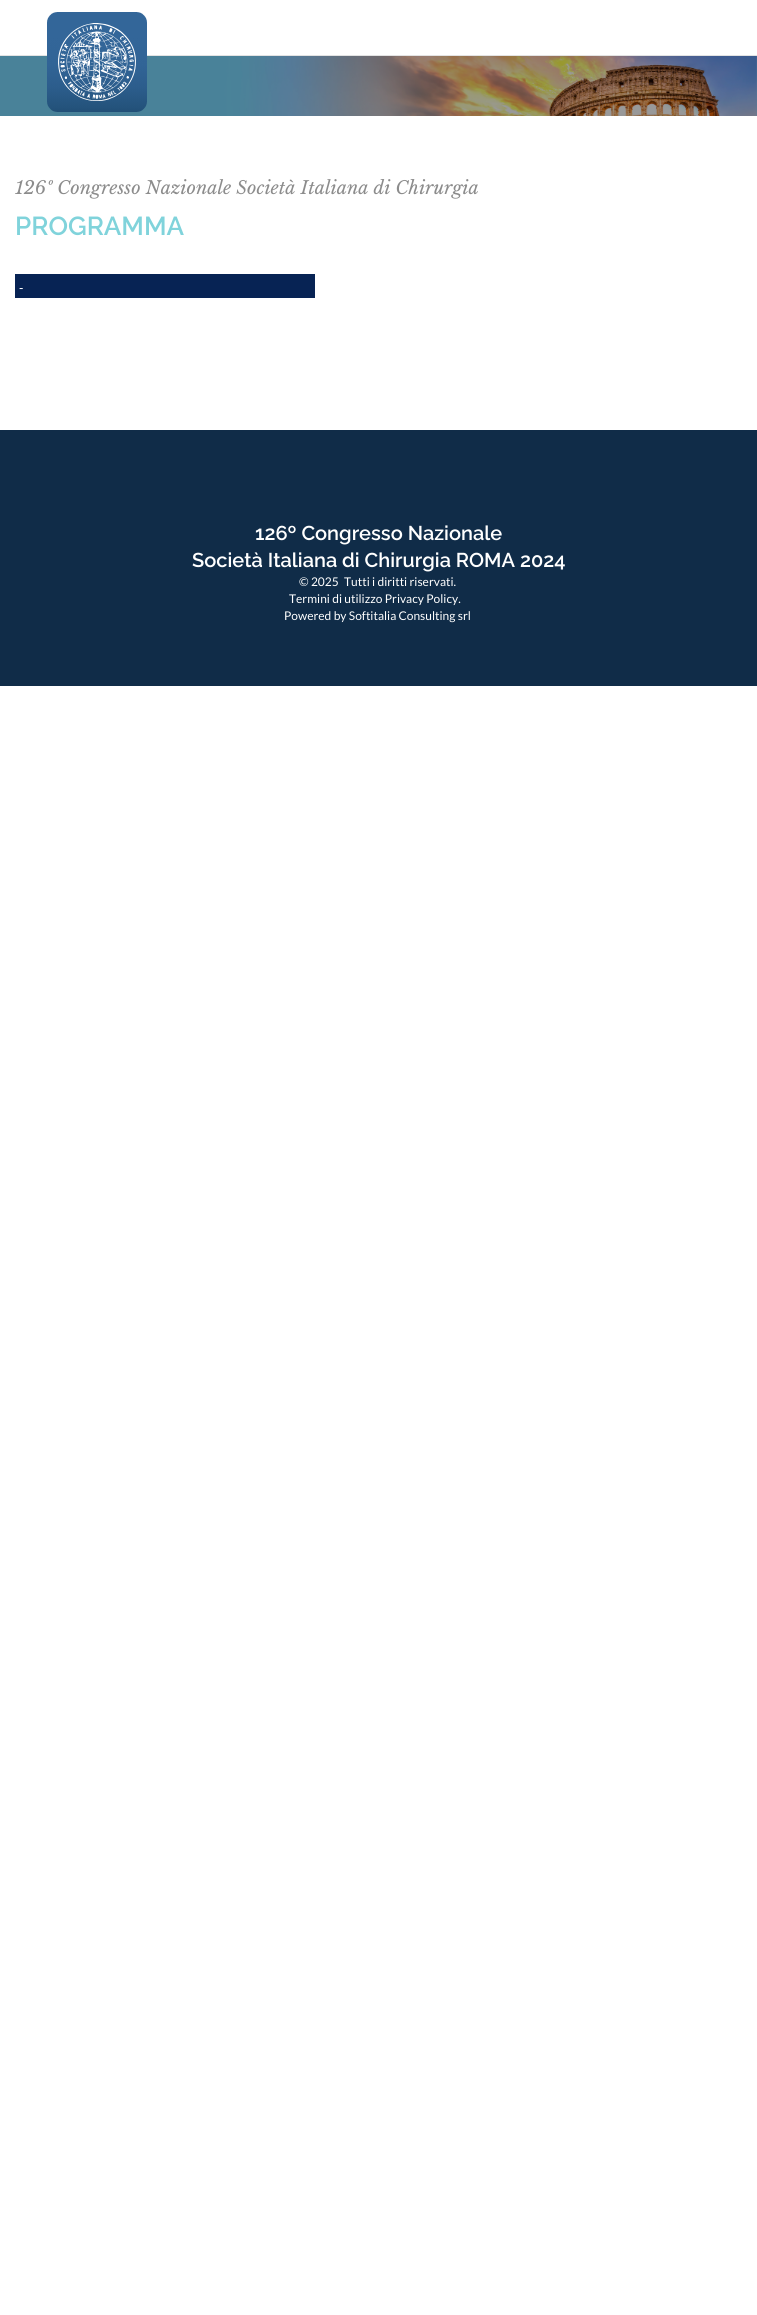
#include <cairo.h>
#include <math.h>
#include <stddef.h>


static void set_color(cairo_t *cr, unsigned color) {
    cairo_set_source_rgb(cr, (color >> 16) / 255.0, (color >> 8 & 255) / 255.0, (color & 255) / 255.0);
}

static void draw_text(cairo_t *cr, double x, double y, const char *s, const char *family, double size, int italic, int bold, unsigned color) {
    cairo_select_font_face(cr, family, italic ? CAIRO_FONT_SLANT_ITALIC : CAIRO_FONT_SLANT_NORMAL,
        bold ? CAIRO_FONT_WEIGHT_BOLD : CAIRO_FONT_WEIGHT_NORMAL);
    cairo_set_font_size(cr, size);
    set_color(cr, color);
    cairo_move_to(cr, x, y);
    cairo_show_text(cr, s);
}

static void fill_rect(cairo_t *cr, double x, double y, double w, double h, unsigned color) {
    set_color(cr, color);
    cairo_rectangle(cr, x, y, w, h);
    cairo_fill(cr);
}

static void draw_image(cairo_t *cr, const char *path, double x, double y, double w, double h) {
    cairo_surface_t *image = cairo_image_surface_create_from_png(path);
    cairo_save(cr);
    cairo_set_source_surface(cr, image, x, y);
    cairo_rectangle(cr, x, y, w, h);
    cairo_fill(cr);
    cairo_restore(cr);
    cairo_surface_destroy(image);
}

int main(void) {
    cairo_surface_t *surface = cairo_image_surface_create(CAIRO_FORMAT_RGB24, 757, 2315);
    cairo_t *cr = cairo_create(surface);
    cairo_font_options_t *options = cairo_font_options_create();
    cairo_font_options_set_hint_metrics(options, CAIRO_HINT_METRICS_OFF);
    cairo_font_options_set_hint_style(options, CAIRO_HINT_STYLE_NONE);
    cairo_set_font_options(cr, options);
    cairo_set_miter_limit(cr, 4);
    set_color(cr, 0xFFFFFF);
    cairo_paint(cr);
    fill_rect(cr, 0, 55, 757, 1, 0xE3E3E3);
    draw_image(cr, "assets/img2.png", 0, 56, 757, 60);
    draw_image(cr, "assets/img1.png", 47, 12, 100, 100);
    draw_text(cr, 15, 194, "126º Congresso Nazionale Società Italiana di Chirurgia", "Libre Baskerville", 18, 1, 0, 0x8C8C8C);
    draw_text(cr, 15, 235, "PROGRAMMA", "Raleway SemiBold", 26, 0, 0, 0x80D3DB);
    fill_rect(cr, 15, 274, 300, 24, 0x072354);
    draw_text(cr, 19, 292, "-", "Liberation Sans", 13, 0, 0, 0xFFFFFF);
    fill_rect(cr, 0, 430, 757, 256, 0x102C48);
    draw_text(cr, 255, 540, "126º Congresso Nazionale", "Raleway SemiBold", 20, 0, 0, 0xFFFFFF);
    draw_text(cr, 192, 567, "Società Italiana di Chirurgia ROMA 2024", "Raleway SemiBold", 20, 0, 0, 0xFFFFFF);
    draw_text(cr, 299, 586, "© 2025", "Lato", 12, 0, 0, 0xFFFFFF);
    draw_text(cr, 344, 586, "Tutti i diritti riservati.", "Lato", 12, 0, 0, 0xFFFFFF);
    draw_text(cr, 289, 603, "Termini di utilizzo Privacy Policy.", "Lato", 12, 0, 0, 0xFFFFFF);
    draw_text(cr, 284, 620, "Powered by Softitalia Consulting srl", "Lato", 12, 0, 0, 0xFFFFFF);
    cairo_surface_write_to_png(surface, "output.png");
    cairo_font_options_destroy(options);
    cairo_destroy(cr);
    cairo_surface_destroy(surface);
    return 0;
}
